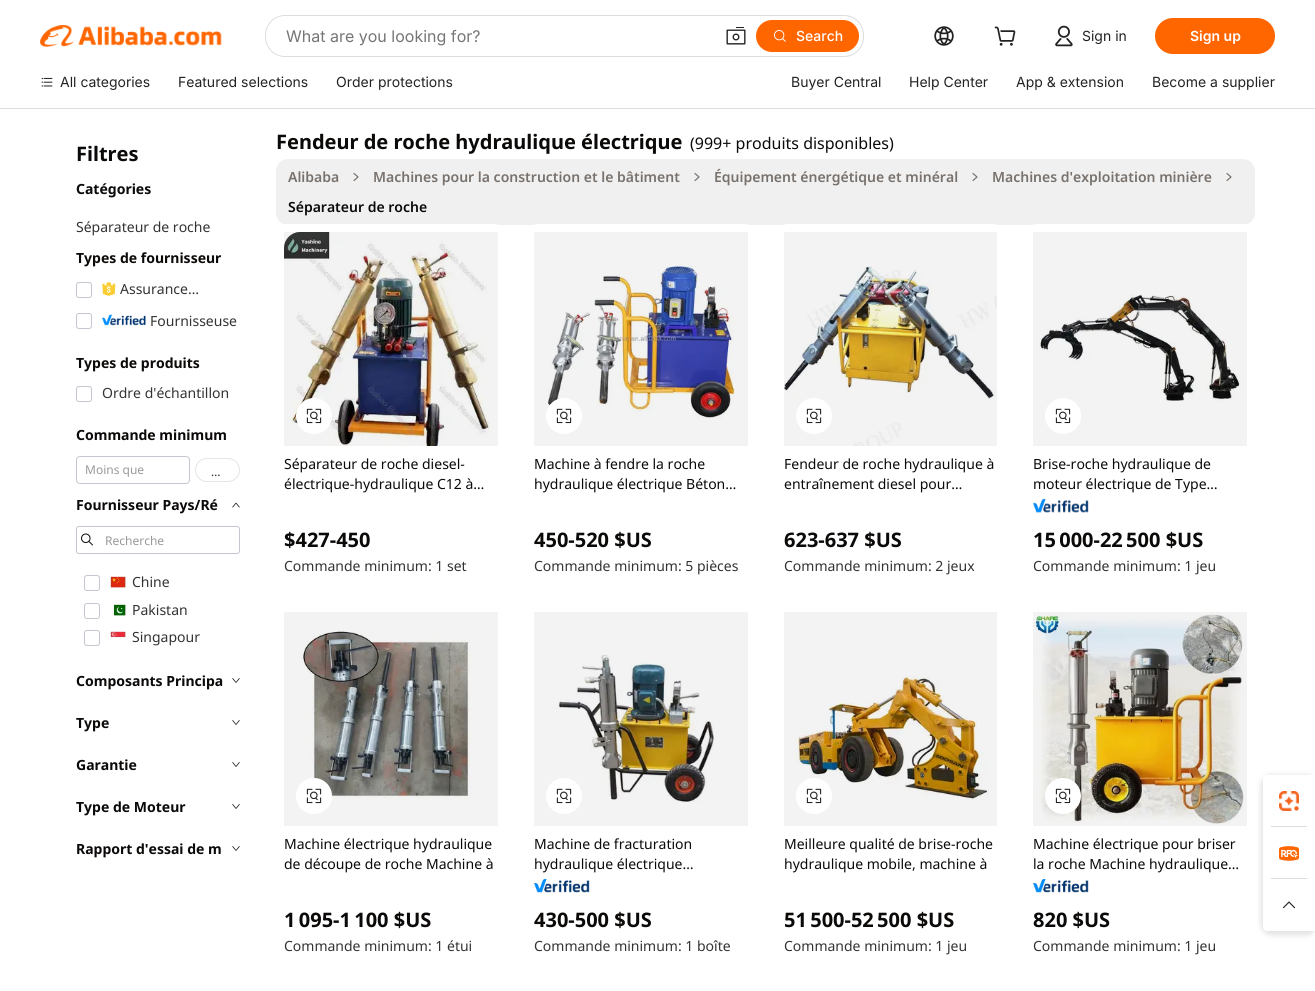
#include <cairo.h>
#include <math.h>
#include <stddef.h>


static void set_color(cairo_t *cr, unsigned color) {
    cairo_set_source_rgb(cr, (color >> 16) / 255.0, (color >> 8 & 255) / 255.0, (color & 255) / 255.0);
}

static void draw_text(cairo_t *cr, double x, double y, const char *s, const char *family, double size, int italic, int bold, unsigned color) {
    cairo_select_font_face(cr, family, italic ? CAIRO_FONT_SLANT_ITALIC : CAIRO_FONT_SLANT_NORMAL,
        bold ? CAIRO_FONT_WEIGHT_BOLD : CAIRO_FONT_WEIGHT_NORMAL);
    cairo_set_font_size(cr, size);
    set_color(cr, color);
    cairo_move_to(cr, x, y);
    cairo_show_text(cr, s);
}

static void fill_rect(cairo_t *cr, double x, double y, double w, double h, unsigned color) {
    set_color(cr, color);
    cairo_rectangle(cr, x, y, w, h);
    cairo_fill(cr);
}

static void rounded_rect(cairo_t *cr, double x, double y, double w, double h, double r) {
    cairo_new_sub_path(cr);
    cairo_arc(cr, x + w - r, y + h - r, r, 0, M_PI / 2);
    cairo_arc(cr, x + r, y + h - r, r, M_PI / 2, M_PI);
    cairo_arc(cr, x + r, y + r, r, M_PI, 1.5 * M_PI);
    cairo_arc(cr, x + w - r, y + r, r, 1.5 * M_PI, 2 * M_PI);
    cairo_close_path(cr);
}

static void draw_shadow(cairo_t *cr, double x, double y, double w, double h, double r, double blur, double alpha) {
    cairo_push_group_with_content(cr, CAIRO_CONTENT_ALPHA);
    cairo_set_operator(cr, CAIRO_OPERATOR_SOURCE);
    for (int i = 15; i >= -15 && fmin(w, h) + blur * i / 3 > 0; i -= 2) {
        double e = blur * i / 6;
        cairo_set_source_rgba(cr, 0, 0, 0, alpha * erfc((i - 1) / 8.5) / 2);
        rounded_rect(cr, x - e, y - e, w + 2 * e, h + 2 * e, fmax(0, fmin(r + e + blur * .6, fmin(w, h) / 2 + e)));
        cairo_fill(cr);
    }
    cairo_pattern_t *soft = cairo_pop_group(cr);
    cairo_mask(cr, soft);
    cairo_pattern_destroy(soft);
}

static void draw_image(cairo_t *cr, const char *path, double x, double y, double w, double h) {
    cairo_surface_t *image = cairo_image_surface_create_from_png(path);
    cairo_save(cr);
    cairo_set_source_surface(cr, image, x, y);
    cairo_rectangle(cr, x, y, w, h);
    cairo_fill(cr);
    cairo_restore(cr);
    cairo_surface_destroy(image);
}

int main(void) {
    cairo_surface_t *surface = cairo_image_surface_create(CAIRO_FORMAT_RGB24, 1315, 991);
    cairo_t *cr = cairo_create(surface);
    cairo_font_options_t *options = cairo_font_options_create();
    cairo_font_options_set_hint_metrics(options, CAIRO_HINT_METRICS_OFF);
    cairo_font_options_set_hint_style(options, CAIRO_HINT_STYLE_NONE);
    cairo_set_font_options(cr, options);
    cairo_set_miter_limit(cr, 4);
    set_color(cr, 0xFFFFFF);
    cairo_paint(cr);
    fill_rect(cr, 0, 108, 1315, 1, 0xDDDDDD);
    draw_image(cr, "assets/img1.png", 40, 25, 182, 22);
    rounded_rect(cr, 265, 15, 599, 42, 20);
    cairo_fill(cr);
    set_color(cr, 0xFFFFFF);
    rounded_rect(cr, 266, 16, 597, 40, 19);
    cairo_fill(cr);
    draw_text(cr, 286, 42, "What are you looking for?", "Inter", 16, 0, 0, 0x767676);
    draw_image(cr, "assets/img2.png", 726, 27, 20, 18);
    set_color(cr, 0xFF6600);
    rounded_rect(cr, 756, 20, 103, 32, 16);
    cairo_fill(cr);
    draw_image(cr, "assets/img3.png", 774, 30, 12, 12);
    draw_text(cr, 796, 41, "Search", "Inter Medium", 14, 0, 0, 0xFFFFFF);
    draw_image(cr, "assets/img4.png", 934, 26, 20, 20);
    draw_image(cr, "assets/img5.png", 994, 26, 22, 20);
    draw_image(cr, "assets/img6.png", 1055, 25, 18, 22);
    draw_text(cr, 1082, 41, "Sign in", "Inter", 14, 0, 0, 0x222222);
    set_color(cr, 0xFF6600);
    rounded_rect(cr, 1155, 18, 120, 36, 18);
    cairo_fill(cr);
    draw_text(cr, 1190, 41, "Sign up", "Inter SemiBold", 14, 0, 0, 0xFFFFFF);
    draw_image(cr, "assets/img7.png", 41, 77, 12, 10);
    draw_text(cr, 60, 87, "All categories", "Inter", 14, 0, 0, 0x222222);
    draw_text(cr, 178, 87, "Featured selections", "Inter", 14, 0, 0, 0x222222);
    draw_text(cr, 336, 87, "Order protections", "Inter", 14, 0, 0, 0x222222);
    draw_text(cr, 791, 87, "Buyer Central", "Inter", 14, 0, 0, 0x222222);
    draw_text(cr, 909, 87, "Help Center", "Inter", 14, 0, 0, 0x222222);
    draw_text(cr, 1016, 87, "App & extension", "Inter", 14, 0, 0, 0x222222);
    draw_text(cr, 1152, 87, "Become a supplier", "Inter", 14, 0, 0, 0x222222);
    draw_text(cr, 76, 161, "Filtres", "Noto Sans", 20, 0, 1, 0x0C0A09);
    draw_text(cr, 76, 194, "Catégories", "Noto Sans", 14, 0, 1, 0x0C0A09);
    draw_text(cr, 76, 232, "Séparateur de roche", "Noto Sans", 14, 0, 0, 0x333333);
    draw_text(cr, 76, 263, "Types de fournisseur", "Noto Sans", 14, 0, 1, 0x0C0A09);
    rounded_rect(cr, 76.5, 282.5, 15, 15, 2.5);
    set_color(cr, 0xC4C6CF);
    cairo_set_line_width(cr, 1);
    cairo_stroke(cr);
    draw_image(cr, "assets/img8.png", 102, 282, 14, 14);
    draw_text(cr, 120, 294, "Assurance…", "Noto Sans", 14, 0, 0, 0x333333);
    rounded_rect(cr, 76.5, 313.5, 15, 15, 2.5);
    set_color(cr, 0xC4C6CF);
    cairo_stroke(cr);
    draw_image(cr, "assets/img9.png", 102, 314, 44, 12);
    draw_text(cr, 150, 326, "Fournisseuse", "Noto Sans", 14, 0, 0, 0x333333);
    draw_text(cr, 76, 368, "Types de produits", "Noto Sans", 14, 0, 1, 0x0C0A09);
    rounded_rect(cr, 76.5, 386.5, 15, 15, 2.5);
    set_color(cr, 0xC4C6CF);
    cairo_stroke(cr);
    draw_text(cr, 102, 398, "Ordre d'échantillon", "Noto Sans", 14, 0, 0, 0x333333);
    draw_text(cr, 76, 440, "Commande minimum", "Noto Sans", 14, 0, 1, 0x0C0A09);
    rounded_rect(cr, 76.5, 456.5, 113, 27, 3.5);
    set_color(cr, 0xC4C6CF);
    cairo_stroke(cr);
    draw_text(cr, 85, 474, "Moins que", "Noto Sans", 12, 0, 0, 0x999999);
    rounded_rect(cr, 195.5, 458.5, 44, 23, 11.5);
    set_color(cr, 0xE7E5E4);
    cairo_stroke(cr);
    draw_text(cr, 211, 476, "…", "Noto Sans", 12, 0, 0, 0x333333);
    draw_text(cr, 76, 510, "Fournisseur Pays/Ré", "Noto Sans", 14, 0, 1, 0x0C0A09);
    draw_image(cr, "assets/img10.png", 232, 502, 8, 6);
    rounded_rect(cr, 76.5, 526.5, 163, 27, 2.5);
    set_color(cr, 0xC4C6CF);
    cairo_stroke(cr);
    draw_image(cr, "assets/img11.png", 81, 533, 12, 13);
    draw_text(cr, 105, 545, "Recherche", "Noto Sans", 12, 0, 0, 0x999999);
    rounded_rect(cr, 84.5, 575.5, 15, 15, 2.5);
    set_color(cr, 0xC4C6CF);
    cairo_stroke(cr);
    draw_image(cr, "assets/img12.png", 110, 576, 16, 12);
    draw_text(cr, 132, 587, "Chine", "Noto Sans", 14, 0, 0, 0x333333);
    rounded_rect(cr, 84.5, 603.5, 15, 15, 2.5);
    set_color(cr, 0xC4C6CF);
    cairo_stroke(cr);
    draw_image(cr, "assets/img13.png", 113, 604, 13, 12);
    draw_text(cr, 132, 615, "Pakistan", "Noto Sans", 14, 0, 0, 0x333333);
    rounded_rect(cr, 84.5, 630.5, 15, 15, 2.5);
    set_color(cr, 0xC4C6CF);
    cairo_stroke(cr);
    draw_image(cr, "assets/img14.png", 110, 631, 16, 7);
    draw_text(cr, 132, 642, "Singapour", "Noto Sans", 14, 0, 0, 0x333333);
    draw_text(cr, 76, 686, "Composants Principa", "Noto Sans", 14, 0, 1, 0x0C0A09);
    draw_image(cr, "assets/img15.png", 232, 678, 8, 5);
    draw_text(cr, 76, 728, "Type", "Noto Sans", 14, 0, 1, 0x0C0A09);
    draw_image(cr, "assets/img15.png", 232, 720, 8, 5);
    draw_text(cr, 76, 770, "Garantie", "Noto Sans", 14, 0, 1, 0x0C0A09);
    draw_image(cr, "assets/img15.png", 232, 762, 8, 5);
    draw_text(cr, 76, 812, "Type de Moteur", "Noto Sans", 14, 0, 1, 0x0C0A09);
    draw_image(cr, "assets/img15.png", 232, 804, 8, 5);
    draw_text(cr, 76, 854, "Rapport d'essai de m", "Noto Sans", 14, 0, 1, 0x0C0A09);
    draw_image(cr, "assets/img15.png", 232, 846, 8, 5);
    draw_text(cr, 276, 149, "Fendeur de roche hydraulique électrique", "Noto Sans", 20, 0, 1, 0x0C0A09);
    draw_text(cr, 690, 149, "(999+ produits disponibles)", "Noto Sans", 16, 0, 0, 0x0C0A09);
    set_color(cr, 0xF0F0F0);
    rounded_rect(cr, 276, 159, 979, 66, 12);
    cairo_fill(cr);
    draw_text(cr, 288, 182, "Alibaba", "Noto Sans SemiBold", 14, 0, 0, 0x78716C);
    cairo_new_path(cr);
    cairo_move_to(cr, 354, 180.5);
    cairo_line_to(cr, 358, 177);
    cairo_line_to(cr, 354, 173.5);
    cairo_set_line_width(cr, 1.2);
    cairo_set_line_cap(cr, CAIRO_LINE_CAP_ROUND);
    cairo_set_line_join(cr, CAIRO_LINE_JOIN_ROUND);
    cairo_stroke(cr);
    draw_text(cr, 373, 182, "Machines pour la construction et le bâtiment", "Noto Sans SemiBold", 14, 0, 0, 0x78716C);
    cairo_new_path(cr);
    cairo_move_to(cr, 695, 180.5);
    cairo_line_to(cr, 699, 177);
    cairo_line_to(cr, 695, 173.5);
    cairo_stroke(cr);
    draw_text(cr, 714, 182, "Équipement énergétique et minéral", "Noto Sans SemiBold", 14, 0, 0, 0x78716C);
    cairo_new_path(cr);
    cairo_move_to(cr, 973, 180.5);
    cairo_line_to(cr, 977, 177);
    cairo_line_to(cr, 973, 173.5);
    cairo_stroke(cr);
    draw_text(cr, 992, 182, "Machines d'exploitation minière", "Noto Sans SemiBold", 14, 0, 0, 0x78716C);
    cairo_new_path(cr);
    cairo_move_to(cr, 1227, 180.5);
    cairo_line_to(cr, 1231, 177);
    cairo_line_to(cr, 1227, 173.5);
    cairo_stroke(cr);
    draw_text(cr, 288, 212, "Séparateur de roche", "Noto Sans SemiBold", 14, 0, 0, 0x0C0A09);
    set_color(cr, 0xFFFFFF);
    rounded_rect(cr, 276, 224, 230, 360, 12);
    cairo_fill(cr);
    draw_image(cr, "assets/img16.png", 284, 232, 207, 214);
    cairo_set_source_rgba(cr, 0, 0, 0, 0.05);
    cairo_rectangle(cr, 284, 232, 214, 214);
    cairo_fill(cr);
    set_color(cr, 0xFFFFFF);
    cairo_arc(cr, 314, 416, 18, 0, 2 * M_PI);
    cairo_fill(cr);
    draw_image(cr, "assets/img17.png", 306, 408, 16, 16);
    draw_text(cr, 284, 469, "Séparateur de roche diesel-", "Noto Sans", 14, 0, 0, 0x0C0A09);
    draw_text(cr, 284, 489, "électrique-hydraulique C12 à…", "Noto Sans", 14, 0, 0, 0x0C0A09);
    draw_text(cr, 284, 547, "$427-450", "Noto Sans", 20, 0, 1, 0x0C0A09);
    draw_text(cr, 284, 571, "Commande minimum: 1 set", "Noto Sans", 14, 0, 0, 0x333333);
    set_color(cr, 0xFFFFFF);
    rounded_rect(cr, 526, 224, 230, 360, 12);
    cairo_fill(cr);
    draw_image(cr, "assets/img18.png", 548, 266, 187, 152);
    cairo_set_source_rgba(cr, 0, 0, 0, 0.05);
    cairo_rectangle(cr, 534, 232, 214, 214);
    cairo_fill(cr);
    set_color(cr, 0xFFFFFF);
    cairo_arc(cr, 564, 416, 18, 0, 2 * M_PI);
    cairo_fill(cr);
    draw_image(cr, "assets/img17.png", 556, 408, 16, 16);
    draw_text(cr, 534, 469, "Machine à fendre la roche", "Noto Sans", 14, 0, 0, 0x0C0A09);
    draw_text(cr, 534, 489, "hydraulique électrique Béton…", "Noto Sans", 14, 0, 0, 0x0C0A09);
    draw_text(cr, 534, 547, "450-520 $US", "Noto Sans", 20, 0, 1, 0x0C0A09);
    draw_text(cr, 534, 571, "Commande minimum: 5 pièces", "Noto Sans", 14, 0, 0, 0x333333);
    set_color(cr, 0xFFFFFF);
    rounded_rect(cr, 776, 224, 229, 360, 12);
    cairo_fill(cr);
    draw_image(cr, "assets/img19.png", 784, 266, 213, 180);
    cairo_set_source_rgba(cr, 0, 0, 0, 0.05);
    cairo_rectangle(cr, 784, 232, 213, 214);
    cairo_fill(cr);
    set_color(cr, 0xFFFFFF);
    cairo_arc(cr, 814, 416, 18, 0, 2 * M_PI);
    cairo_fill(cr);
    draw_image(cr, "assets/img17.png", 806, 408, 16, 16);
    draw_text(cr, 784, 469, "Fendeur de roche hydraulique à", "Noto Sans", 14, 0, 0, 0x0C0A09);
    draw_text(cr, 784, 489, "entraînement diesel pour…", "Noto Sans", 14, 0, 0, 0x0C0A09);
    draw_text(cr, 784, 547, "623-637 $US", "Noto Sans", 20, 0, 1, 0x0C0A09);
    draw_text(cr, 784, 571, "Commande minimum: 2 jeux", "Noto Sans", 14, 0, 0, 0x333333);
    set_color(cr, 0xFFFFFF);
    rounded_rect(cr, 1025, 224, 230, 360, 12);
    cairo_fill(cr);
    draw_image(cr, "assets/img20.png", 1039, 295, 202, 106);
    cairo_set_source_rgba(cr, 0, 0, 0, 0.05);
    cairo_rectangle(cr, 1033, 232, 214, 214);
    cairo_fill(cr);
    set_color(cr, 0xFFFFFF);
    cairo_arc(cr, 1063, 416, 18, 0, 2 * M_PI);
    cairo_fill(cr);
    draw_image(cr, "assets/img17.png", 1055, 408, 16, 16);
    draw_text(cr, 1033, 469, "Brise-roche hydraulique de", "Noto Sans", 14, 0, 0, 0x0C0A09);
    draw_text(cr, 1033, 489, "moteur électrique de Type…", "Noto Sans", 14, 0, 0, 0x0C0A09);
    draw_image(cr, "assets/img21.png", 1033, 498, 56, 15);
    draw_text(cr, 1033, 547, "15 000-22 500 $US", "Noto Sans", 20, 0, 1, 0x0C0A09);
    draw_text(cr, 1033, 571, "Commande minimum: 1 jeu", "Noto Sans", 14, 0, 0, 0x333333);
    draw_image(cr, "assets/img22.png", 301, 631, 170, 169);
    cairo_set_source_rgba(cr, 0, 0, 0, 0.05);
    cairo_rectangle(cr, 284, 612, 214, 214);
    cairo_fill(cr);
    set_color(cr, 0xFFFFFF);
    cairo_arc(cr, 314, 796, 18, 0, 2 * M_PI);
    cairo_fill(cr);
    draw_image(cr, "assets/img17.png", 306, 788, 16, 16);
    draw_text(cr, 284, 849, "Machine électrique hydraulique", "Noto Sans", 14, 0, 0, 0x0C0A09);
    draw_text(cr, 284, 869, "de découpe de roche Machine à", "Noto Sans", 14, 0, 0, 0x0C0A09);
    draw_text(cr, 284, 927, "1 095-1 100 $US", "Noto Sans", 20, 0, 1, 0x0C0A09);
    draw_text(cr, 284, 951, "Commande minimum: 1 étui", "Noto Sans", 14, 0, 0, 0x333333);
    draw_image(cr, "assets/img23.png", 557, 655, 157, 148);
    cairo_set_source_rgba(cr, 0, 0, 0, 0.05);
    cairo_rectangle(cr, 534, 612, 214, 214);
    cairo_fill(cr);
    set_color(cr, 0xFFFFFF);
    cairo_arc(cr, 564, 796, 18, 0, 2 * M_PI);
    cairo_fill(cr);
    draw_image(cr, "assets/img17.png", 556, 788, 16, 16);
    draw_text(cr, 534, 849, "Machine de fracturation", "Noto Sans", 14, 0, 0, 0x0C0A09);
    draw_text(cr, 534, 869, "hydraulique électrique…", "Noto Sans", 14, 0, 0, 0x0C0A09);
    draw_image(cr, "assets/img24.png", 534, 879, 56, 14);
    draw_text(cr, 534, 927, "430-500 $US", "Noto Sans", 20, 0, 1, 0x0C0A09);
    draw_text(cr, 534, 951, "Commande minimum: 1 boîte", "Noto Sans", 14, 0, 0, 0x333333);
    draw_image(cr, "assets/img25.png", 795, 675, 194, 126);
    cairo_set_source_rgba(cr, 0, 0, 0, 0.05);
    cairo_rectangle(cr, 784, 612, 213, 214);
    cairo_fill(cr);
    set_color(cr, 0xFFFFFF);
    cairo_arc(cr, 814, 796, 18, 0, 2 * M_PI);
    cairo_fill(cr);
    draw_image(cr, "assets/img17.png", 806, 788, 16, 16);
    draw_text(cr, 784, 849, "Meilleure qualité de brise-roche", "Noto Sans", 14, 0, 0, 0x0C0A09);
    draw_text(cr, 784, 869, "hydraulique mobile, machine à", "Noto Sans", 14, 0, 0, 0x0C0A09);
    draw_text(cr, 784, 927, "51 500-52 500 $US", "Noto Sans", 20, 0, 1, 0x0C0A09);
    draw_text(cr, 784, 951, "Commande minimum: 1 jeu", "Noto Sans", 14, 0, 0, 0x333333);
    draw_image(cr, "assets/img26.png", 1033, 612, 211, 212);
    cairo_set_source_rgba(cr, 0, 0, 0, 0.05);
    cairo_rectangle(cr, 1033, 612, 214, 214);
    cairo_fill(cr);
    set_color(cr, 0xFFFFFF);
    cairo_arc(cr, 1063, 796, 18, 0, 2 * M_PI);
    cairo_fill(cr);
    draw_image(cr, "assets/img17.png", 1055, 788, 16, 16);
    draw_text(cr, 1033, 849, "Machine électrique pour briser", "Noto Sans", 14, 0, 0, 0x0C0A09);
    draw_text(cr, 1033, 869, "la roche Machine hydraulique…", "Noto Sans", 14, 0, 0, 0x0C0A09);
    draw_image(cr, "assets/img24.png", 1033, 879, 56, 14);
    draw_text(cr, 1033, 927, "820 $US", "Noto Sans", 20, 0, 1, 0x0C0A09);
    draw_text(cr, 1033, 951, "Commande minimum: 1 jeu", "Noto Sans", 14, 0, 0, 0x333333);
    set_color(cr, 0x000000);
    draw_shadow(cr, 1261, 775, 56, 160, 10, 3, 0.12);
    set_color(cr, 0xFFFFFF);
    cairo_new_path(cr);
    cairo_move_to(cr, 1271, 775);
    cairo_line_to(cr, 1315, 775);
    cairo_line_to(cr, 1315, 931);
    cairo_line_to(cr, 1271, 931);
    cairo_curve_to(cr, 1266.5, 931, 1263, 927.5, 1263, 923);
    cairo_line_to(cr, 1263, 783);
    cairo_curve_to(cr, 1263, 778.5, 1266.5, 775, 1271, 775);
    cairo_close_path(cr);
    cairo_fill(cr);
    rounded_rect(cr, 1263, 775, 52, 52, 4);
    cairo_fill(cr);
    draw_image(cr, "assets/img27.png", 1279, 791, 20, 20);
    fill_rect(cr, 1271, 826, 36, 1, 0xDDDDDD);
    draw_image(cr, "assets/img28.png", 1279, 846, 20, 15);
    fill_rect(cr, 1271, 878, 36, 1, 0xDDDDDD);
    set_color(cr, 0xFFFFFF);
    rounded_rect(cr, 1263, 879, 52, 52, 4);
    cairo_fill(cr);
    draw_image(cr, "assets/img29.png", 1282, 901, 14, 8);
    cairo_surface_write_to_png(surface, "output.png");
    cairo_font_options_destroy(options);
    cairo_destroy(cr);
    cairo_surface_destroy(surface);
    return 0;
}
